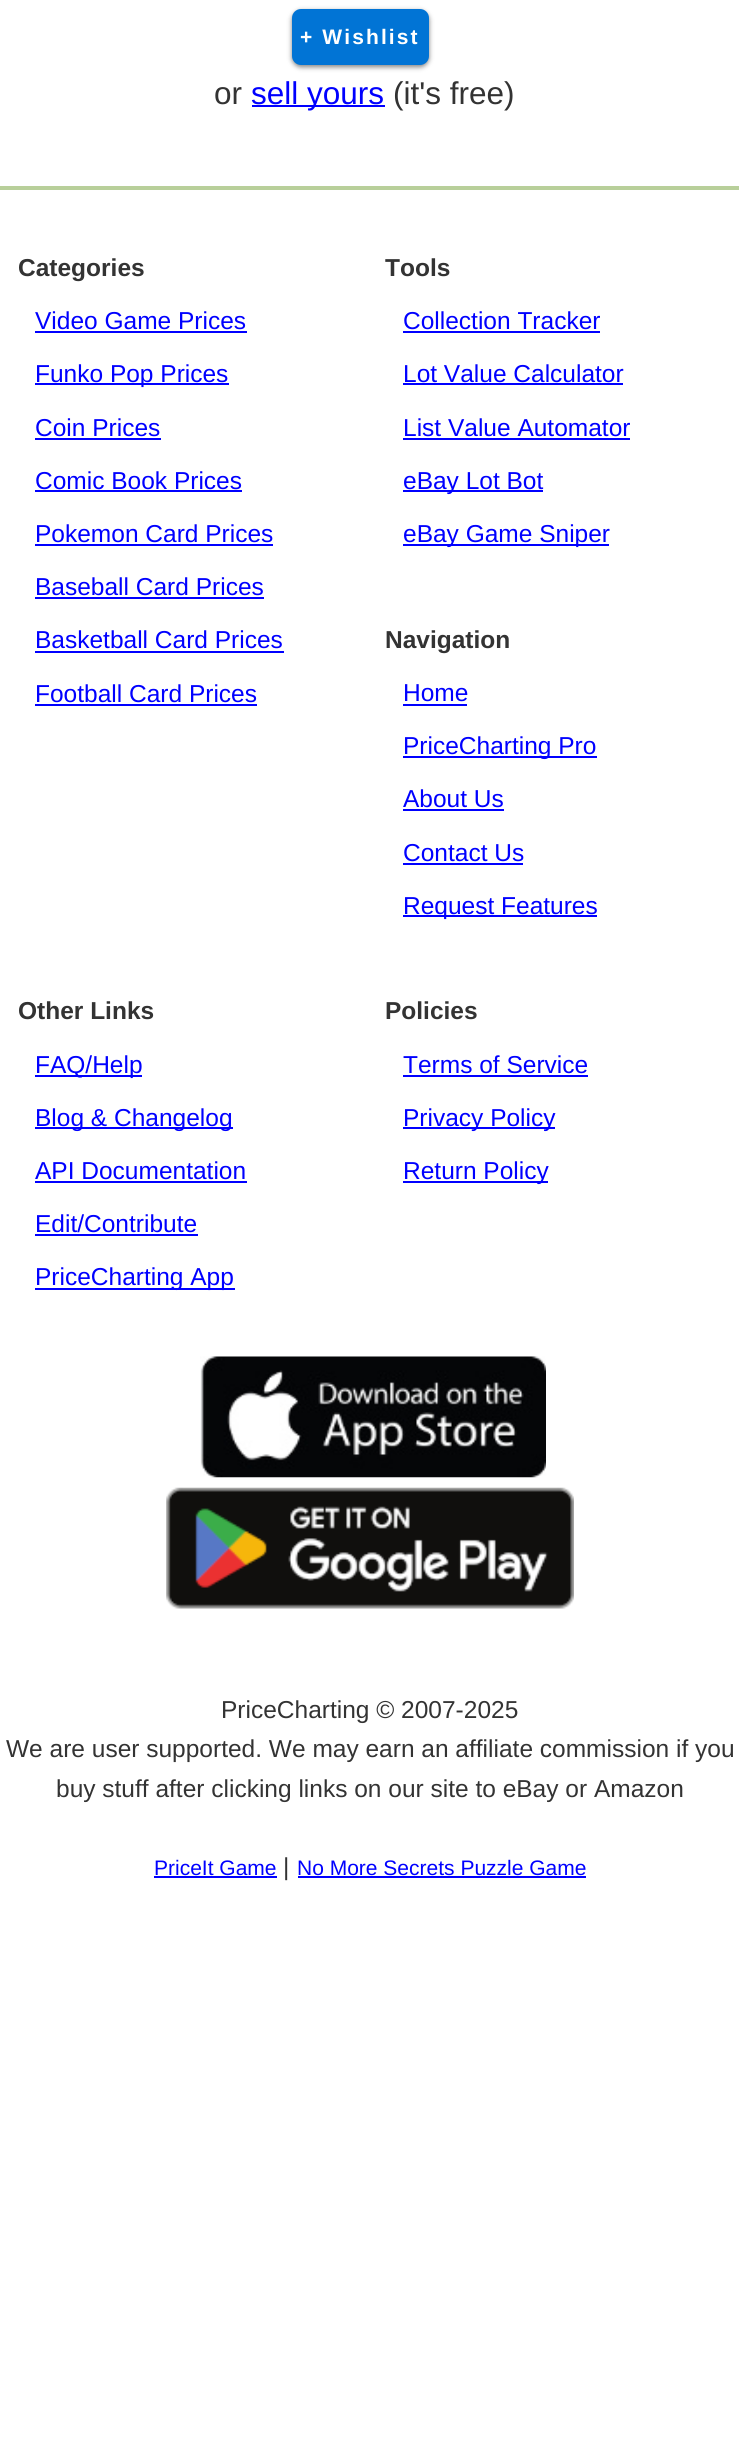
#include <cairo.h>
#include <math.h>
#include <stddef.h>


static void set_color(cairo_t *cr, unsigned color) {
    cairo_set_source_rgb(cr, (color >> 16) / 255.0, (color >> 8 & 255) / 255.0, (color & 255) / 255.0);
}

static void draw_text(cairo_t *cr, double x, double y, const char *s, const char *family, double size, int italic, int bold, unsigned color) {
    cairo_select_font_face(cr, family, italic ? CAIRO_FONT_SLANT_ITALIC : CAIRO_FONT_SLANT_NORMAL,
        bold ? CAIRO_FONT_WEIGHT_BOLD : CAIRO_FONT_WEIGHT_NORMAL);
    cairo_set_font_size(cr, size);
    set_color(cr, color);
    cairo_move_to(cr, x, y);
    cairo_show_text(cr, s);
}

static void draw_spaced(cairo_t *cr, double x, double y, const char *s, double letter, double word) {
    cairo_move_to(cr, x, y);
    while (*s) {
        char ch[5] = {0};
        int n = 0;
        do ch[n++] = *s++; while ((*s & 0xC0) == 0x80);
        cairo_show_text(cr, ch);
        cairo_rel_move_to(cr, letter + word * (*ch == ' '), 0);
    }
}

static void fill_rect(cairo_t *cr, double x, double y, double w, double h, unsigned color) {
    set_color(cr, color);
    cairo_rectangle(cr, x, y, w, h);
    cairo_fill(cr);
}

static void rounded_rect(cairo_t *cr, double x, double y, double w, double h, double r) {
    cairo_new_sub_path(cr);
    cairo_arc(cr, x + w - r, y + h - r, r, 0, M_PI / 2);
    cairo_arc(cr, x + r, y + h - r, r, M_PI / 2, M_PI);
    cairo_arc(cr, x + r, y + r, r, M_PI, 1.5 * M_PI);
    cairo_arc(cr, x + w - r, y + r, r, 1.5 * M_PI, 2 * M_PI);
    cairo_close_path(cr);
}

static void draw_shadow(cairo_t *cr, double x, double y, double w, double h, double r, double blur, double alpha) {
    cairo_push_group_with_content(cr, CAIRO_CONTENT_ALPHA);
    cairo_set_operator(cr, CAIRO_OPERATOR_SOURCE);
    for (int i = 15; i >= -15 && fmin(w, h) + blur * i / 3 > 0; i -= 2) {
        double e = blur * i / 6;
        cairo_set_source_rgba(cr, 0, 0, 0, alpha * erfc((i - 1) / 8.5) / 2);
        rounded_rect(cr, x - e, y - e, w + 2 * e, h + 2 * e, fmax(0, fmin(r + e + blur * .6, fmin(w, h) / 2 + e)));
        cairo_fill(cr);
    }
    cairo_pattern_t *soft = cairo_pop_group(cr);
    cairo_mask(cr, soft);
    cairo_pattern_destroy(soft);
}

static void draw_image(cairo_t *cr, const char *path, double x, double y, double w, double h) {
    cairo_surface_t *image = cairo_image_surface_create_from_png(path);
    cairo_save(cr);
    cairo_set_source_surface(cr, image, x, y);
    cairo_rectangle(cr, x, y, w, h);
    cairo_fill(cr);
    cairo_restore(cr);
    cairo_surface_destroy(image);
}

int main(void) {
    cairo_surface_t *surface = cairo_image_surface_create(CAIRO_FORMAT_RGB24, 739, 2440);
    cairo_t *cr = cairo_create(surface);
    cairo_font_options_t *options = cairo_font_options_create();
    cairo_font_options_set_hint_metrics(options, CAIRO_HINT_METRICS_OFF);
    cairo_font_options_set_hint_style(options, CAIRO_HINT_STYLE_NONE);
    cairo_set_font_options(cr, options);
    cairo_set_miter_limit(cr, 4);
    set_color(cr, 0xFFFFFF);
    cairo_paint(cr);
    set_color(cr, 0x000000);
    draw_shadow(cr, 292, 11, 137, 56, 9, 2.5, 0.5);
    set_color(cr, 0x0174D5);
    rounded_rect(cr, 292, 9, 137, 56, 9);
    cairo_fill(cr);
    cairo_select_font_face(cr, "Liberation Sans", CAIRO_FONT_SLANT_NORMAL, CAIRO_FONT_WEIGHT_BOLD);
    cairo_set_font_size(cr, 21);
    set_color(cr, 0xFFFFFF);
    draw_spaced(cr, 300, 44, "+ Wishlist", 2.1, 0);
    draw_text(cr, 214, 104, "or", "Liberation Sans", 31.5, 0, 0, 0x333333);
    fill_rect(cr, 252, 105, 133, 2, 0x0000FF);
    draw_text(cr, 251, 104, "sell yours", "Liberation Sans", 31.5, 0, 0, 0x0000FF);
    draw_text(cr, 393, 104, "(it's free)", "Liberation Sans", 31.5, 0, 0, 0x333333);
    fill_rect(cr, 0, 186, 739, 4, 0xB8CF9A);
    draw_text(cr, 18, 276, "Categories", "Liberation Sans", 24.5, 0, 1, 0x333333);
    draw_text(cr, 35, 329, "Video Game Prices", "Liberation Sans", 24.5, 0, 0, 0x0000FF);
    fill_rect(cr, 35, 331, 212, 2, 0x0000FF);
    fill_rect(cr, 35, 383, 194, 2, 0x0000FF);
    draw_text(cr, 35, 382, "Funko Pop Prices", "Liberation Sans", 24.5, 0, 0, 0x0000FF);
    draw_text(cr, 35, 436, "Coin Prices", "Liberation Sans", 24.5, 0, 0, 0x0000FF);
    fill_rect(cr, 35, 438, 126, 2, 0x0000FF);
    draw_text(cr, 35, 489, "Comic Book Prices", "Liberation Sans", 24.5, 0, 0, 0x0000FF);
    fill_rect(cr, 35, 490, 207, 2, 0x0000FF);
    draw_text(cr, 35, 542, "Pokemon Card Prices", "Liberation Sans", 24.5, 0, 0, 0x0000FF);
    fill_rect(cr, 35, 544, 238, 2, 0x0000FF);
    draw_text(cr, 35, 595, "Baseball Card Prices", "Liberation Sans", 24.5, 0, 0, 0x0000FF);
    fill_rect(cr, 35, 597, 229, 2, 0x0000FF);
    draw_text(cr, 35, 648, "Basketball Card Prices", "Liberation Sans", 24.5, 0, 0, 0x0000FF);
    fill_rect(cr, 35, 651, 249, 2, 0x0000FF);
    draw_text(cr, 35, 702, "Football Card Prices", "Liberation Sans", 24.5, 0, 0, 0x0000FF);
    fill_rect(cr, 35, 704, 222, 2, 0x0000FF);
    draw_text(cr, 385, 276, "Tools", "Liberation Sans", 24.5, 0, 1, 0x333333);
    draw_text(cr, 403, 329, "Collection Tracker", "Liberation Sans", 24.5, 0, 0, 0x0000FF);
    fill_rect(cr, 403, 331, 197, 2, 0x0000FF);
    draw_text(cr, 403, 382, "Lot Value Calculator", "Liberation Sans", 24.5, 0, 0, 0x0000FF);
    fill_rect(cr, 403, 383, 220, 2, 0x0000FF);
    draw_text(cr, 403, 436, "List Value Automator", "Liberation Sans", 24.5, 0, 0, 0x0000FF);
    fill_rect(cr, 403, 438, 227, 2, 0x0000FF);
    fill_rect(cr, 403, 490, 140, 2, 0x0000FF);
    draw_text(cr, 403, 489, "eBay Lot Bot", "Liberation Sans", 24.5, 0, 0, 0x0000FF);
    fill_rect(cr, 403, 544, 206, 2, 0x0000FF);
    draw_text(cr, 403, 542, "eBay Game Sniper", "Liberation Sans", 24.5, 0, 0, 0x0000FF);
    draw_text(cr, 385, 648, "Navigation", "Liberation Sans", 24.5, 0, 1, 0x333333);
    draw_text(cr, 403, 701, "Home", "Liberation Sans", 24.5, 0, 0, 0x0000FF);
    fill_rect(cr, 403, 704, 64, 2, 0x0000FF);
    fill_rect(cr, 403, 756, 194, 2, 0x0000FF);
    draw_text(cr, 403, 754, "PriceCharting Pro", "Liberation Sans", 24.5, 0, 0, 0x0000FF);
    draw_text(cr, 403, 807, "About Us", "Liberation Sans", 24.5, 0, 0, 0x0000FF);
    fill_rect(cr, 403, 809, 101, 2, 0x0000FF);
    draw_text(cr, 403, 861, "Contact Us", "Liberation Sans", 24.5, 0, 0, 0x0000FF);
    fill_rect(cr, 403, 863, 120, 2, 0x0000FF);
    fill_rect(cr, 403, 915, 194, 2, 0x0000FF);
    draw_text(cr, 403, 914, "Request Features", "Liberation Sans", 24.5, 0, 0, 0x0000FF);
    draw_text(cr, 18, 1019, "Other Links", "Liberation Sans", 24.5, 0, 1, 0x333333);
    fill_rect(cr, 35, 1075, 107, 2, 0x0000FF);
    draw_text(cr, 35, 1073, "FAQ/Help", "Liberation Sans", 24.5, 0, 0, 0x0000FF);
    fill_rect(cr, 35, 1127, 198, 2, 0x0000FF);
    draw_text(cr, 35, 1126, "Blog & Changelog", "Liberation Sans", 24.5, 0, 0, 0x0000FF);
    draw_text(cr, 35, 1179, "API Documentation", "Liberation Sans", 24.5, 0, 0, 0x0000FF);
    fill_rect(cr, 35, 1181, 212, 2, 0x0000FF);
    draw_text(cr, 35, 1232, "Edit/Contribute", "Liberation Sans", 24.5, 0, 0, 0x0000FF);
    fill_rect(cr, 35, 1234, 163, 2, 0x0000FF);
    fill_rect(cr, 35, 1288, 200, 2, 0x0000FF);
    draw_text(cr, 35, 1285, "PriceCharting App", "Liberation Sans", 24.5, 0, 0, 0x0000FF);
    draw_text(cr, 385, 1019, "Policies", "Liberation Sans", 24.5, 0, 1, 0x333333);
    draw_text(cr, 403, 1073, "Terms of Service", "Liberation Sans", 24.5, 0, 0, 0x0000FF);
    fill_rect(cr, 403, 1075, 185, 2, 0x0000FF);
    fill_rect(cr, 403, 1127, 152, 2, 0x0000FF);
    draw_text(cr, 403, 1126, "Privacy Policy", "Liberation Sans", 24.5, 0, 0, 0x0000FF);
    fill_rect(cr, 403, 1181, 145, 2, 0x0000FF);
    draw_text(cr, 403, 1179, "Return Policy", "Liberation Sans", 24.5, 0, 0, 0x0000FF);
    draw_image(cr, "assets/img1.png", 200, 1356, 346, 122);
    draw_image(cr, "assets/img2.png", 166, 1487, 408, 122);
    draw_text(cr, 221, 1718, "PriceCharting © 2007-2025", "Liberation Sans", 24.5, 0, 0, 0x333333);
    draw_text(cr, 6, 1757, "We are user supported. We may earn an affiliate commission if you", "Liberation Sans", 24.5, 0, 0, 0x333333);
    draw_text(cr, 56, 1797, "buy stuff after clicking links on our site to eBay or Amazon", "Liberation Sans", 24.5, 0, 0, 0x333333);
    draw_text(cr, 154, 1875, "PriceIt Game", "Liberation Sans", 21, 0, 0, 0x0000FF);
    fill_rect(cr, 154, 1876, 123, 2, 0x0000FF);
    draw_text(cr, 283, 1875, "|", "Liberation Sans", 24.5, 0, 0, 0x333333);
    draw_text(cr, 297, 1875, "No More Secrets Puzzle Game", "Liberation Sans", 21, 0, 0, 0x0000FF);
    fill_rect(cr, 298, 1876, 288, 2, 0x0000FF);
    cairo_surface_write_to_png(surface, "output.png");
    cairo_font_options_destroy(options);
    cairo_destroy(cr);
    cairo_surface_destroy(surface);
    return 0;
}
